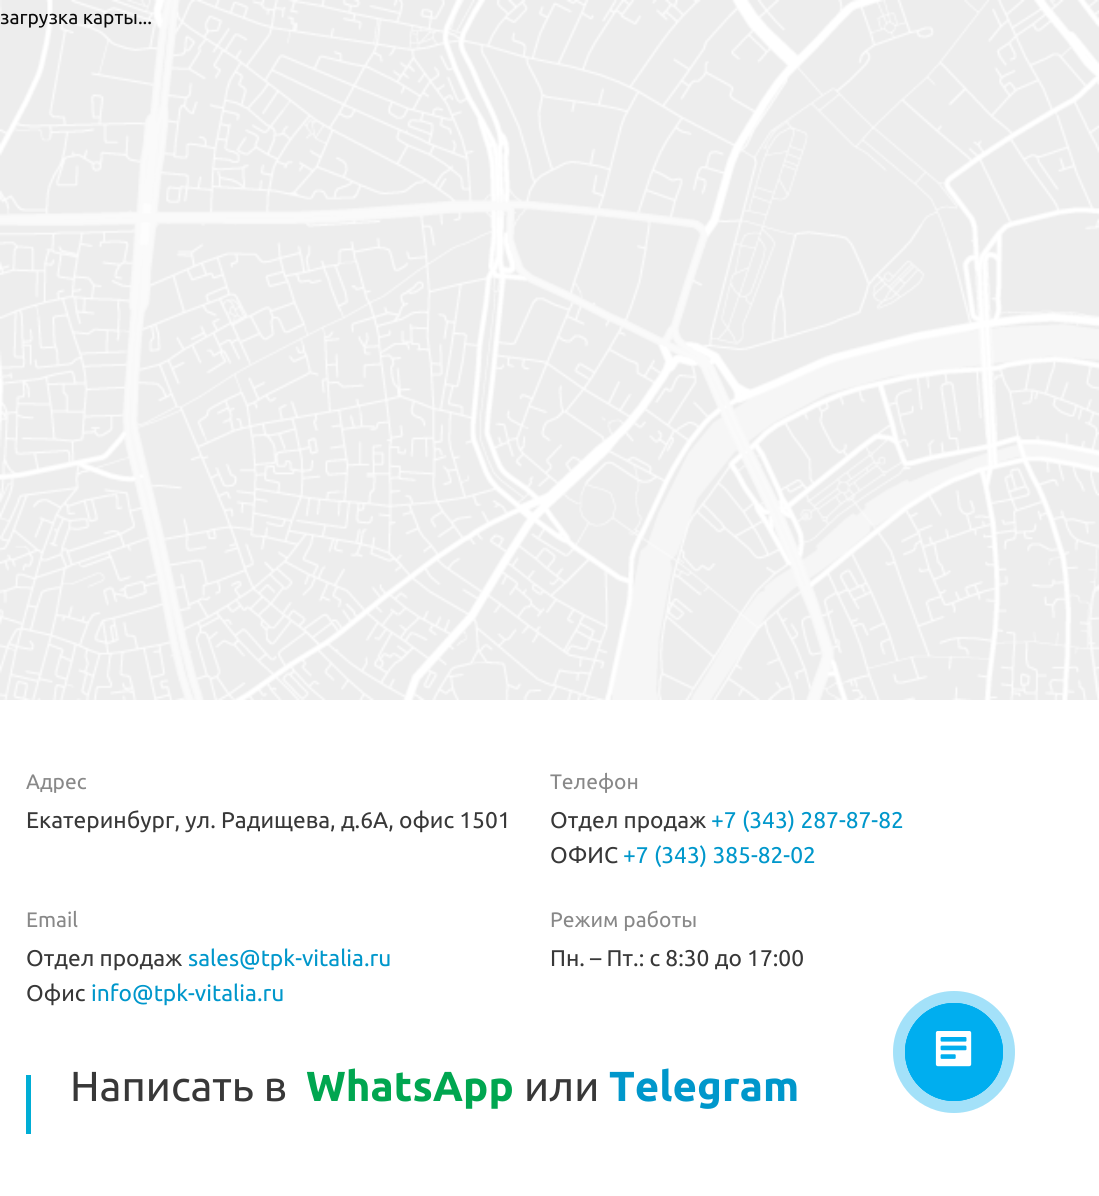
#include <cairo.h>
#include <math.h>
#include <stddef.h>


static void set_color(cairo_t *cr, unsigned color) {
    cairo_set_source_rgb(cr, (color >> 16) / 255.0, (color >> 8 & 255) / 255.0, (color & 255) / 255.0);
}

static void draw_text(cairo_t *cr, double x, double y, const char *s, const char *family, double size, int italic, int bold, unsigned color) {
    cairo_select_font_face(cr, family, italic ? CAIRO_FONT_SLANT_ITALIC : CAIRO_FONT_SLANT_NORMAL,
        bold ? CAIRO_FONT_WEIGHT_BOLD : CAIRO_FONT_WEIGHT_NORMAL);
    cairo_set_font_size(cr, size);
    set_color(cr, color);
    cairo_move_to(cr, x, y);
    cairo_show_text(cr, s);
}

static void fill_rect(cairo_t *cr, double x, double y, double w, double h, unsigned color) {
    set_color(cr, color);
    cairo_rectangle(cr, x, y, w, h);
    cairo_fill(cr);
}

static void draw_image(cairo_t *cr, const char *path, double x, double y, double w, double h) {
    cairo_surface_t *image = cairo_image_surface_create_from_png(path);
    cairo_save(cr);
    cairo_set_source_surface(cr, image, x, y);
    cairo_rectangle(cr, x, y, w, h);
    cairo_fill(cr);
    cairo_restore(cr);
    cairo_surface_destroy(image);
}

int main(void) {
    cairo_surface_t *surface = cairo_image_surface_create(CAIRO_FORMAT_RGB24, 1099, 1196);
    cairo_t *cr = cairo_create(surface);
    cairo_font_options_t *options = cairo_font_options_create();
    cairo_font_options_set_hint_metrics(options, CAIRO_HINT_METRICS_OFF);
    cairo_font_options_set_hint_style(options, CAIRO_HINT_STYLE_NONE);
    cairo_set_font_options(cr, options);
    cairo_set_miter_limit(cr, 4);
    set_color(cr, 0xFFFFFF);
    cairo_paint(cr);
    draw_text(cr, 0, 24, "загрузка карты...", "Ubuntu", 19.25, 0, 0, 0x0A0A0A);
    draw_image(cr, "assets/img1.png", 0, 0, 1099, 700);
    draw_text(cr, 26, 789, "Адрес", "Ubuntu", 21, 0, 0, 0x888888);
    draw_text(cr, 26, 828, "Екатеринбург, ул. Радищева, д.6А, офис 1501", "Ubuntu", 22.75, 0, 0, 0x383838);
    draw_text(cr, 550, 789, "Телефон", "Ubuntu", 21, 0, 0, 0x888888);
    draw_text(cr, 550, 828, "Отдел продаж", "Ubuntu", 22.75, 0, 0, 0x383838);
    draw_text(cr, 711, 828, "+7 (343) 287-87-82", "Ubuntu", 22.75, 0, 0, 0x0097CB);
    draw_text(cr, 550, 863, "ОФИС", "Ubuntu", 22.75, 0, 0, 0x383838);
    draw_text(cr, 623, 863, "+7 (343) 385-82-02", "Ubuntu", 22.75, 0, 0, 0x0097CB);
    draw_text(cr, 26, 927, "Email", "Ubuntu", 21, 0, 0, 0x888888);
    draw_text(cr, 26, 966, "Отдел продаж", "Ubuntu", 22.75, 0, 0, 0x383838);
    draw_text(cr, 188, 966, "sales@tpk-vitalia.ru", "Ubuntu", 22.75, 0, 0, 0x0097CB);
    draw_text(cr, 26, 1001, "Офис", "Ubuntu", 22.75, 0, 0, 0x383838);
    draw_text(cr, 91, 1001, "info@tpk-vitalia.ru", "Ubuntu", 22.75, 0, 0, 0x0097CB);
    draw_text(cr, 550, 927, "Режим работы", "Ubuntu", 21, 0, 0, 0x888888);
    draw_text(cr, 550, 966, "Пн. – Пт.: с 8:30 до 17:00", "Ubuntu", 22.75, 0, 0, 0x383838);
    fill_rect(cr, 26, 1075, 5, 59, 0x00ADD5);
    draw_text(cr, 70, 1101, "Написать в", "Ubuntu", 42, 0, 0, 0x383838);
    draw_text(cr, 306, 1101, "WhatsApp", "Ubuntu", 42, 0, 1, 0x00A650);
    draw_text(cr, 524, 1101, "или", "Ubuntu", 42, 0, 0, 0x383838);
    draw_text(cr, 609, 1101, "Telegram", "Ubuntu", 42, 0, 1, 0x0097CB);
    set_color(cr, 0xCCEFFC);
    cairo_new_path(cr);
    cairo_arc(cr, 954, 1052, 61, 0, 2 * M_PI);
    cairo_fill(cr);
    cairo_arc(cr, 954, 1052, 48.5, 0, 2 * M_PI);
    set_color(cr, 0x00AEEF);
    cairo_set_line_width(cr, 1);
    cairo_stroke(cr);
    cairo_set_source_rgba(cr, 0, 0.682, 0.937, 0.2);
    cairo_arc(cr, 954, 1052, 61, 0, 2 * M_PI);
    cairo_fill(cr);
    cairo_arc(cr, 954, 1052, 48.5, 0, 2 * M_PI);
    set_color(cr, 0x00AEEF);
    cairo_stroke(cr);
    cairo_arc(cr, 954, 1052, 49, 0, 2 * M_PI);
    cairo_fill(cr);
    draw_image(cr, "assets/img2.png", 935, 1031, 37, 36);
    cairo_surface_write_to_png(surface, "output.png");
    cairo_font_options_destroy(options);
    cairo_destroy(cr);
    cairo_surface_destroy(surface);
    return 0;
}
